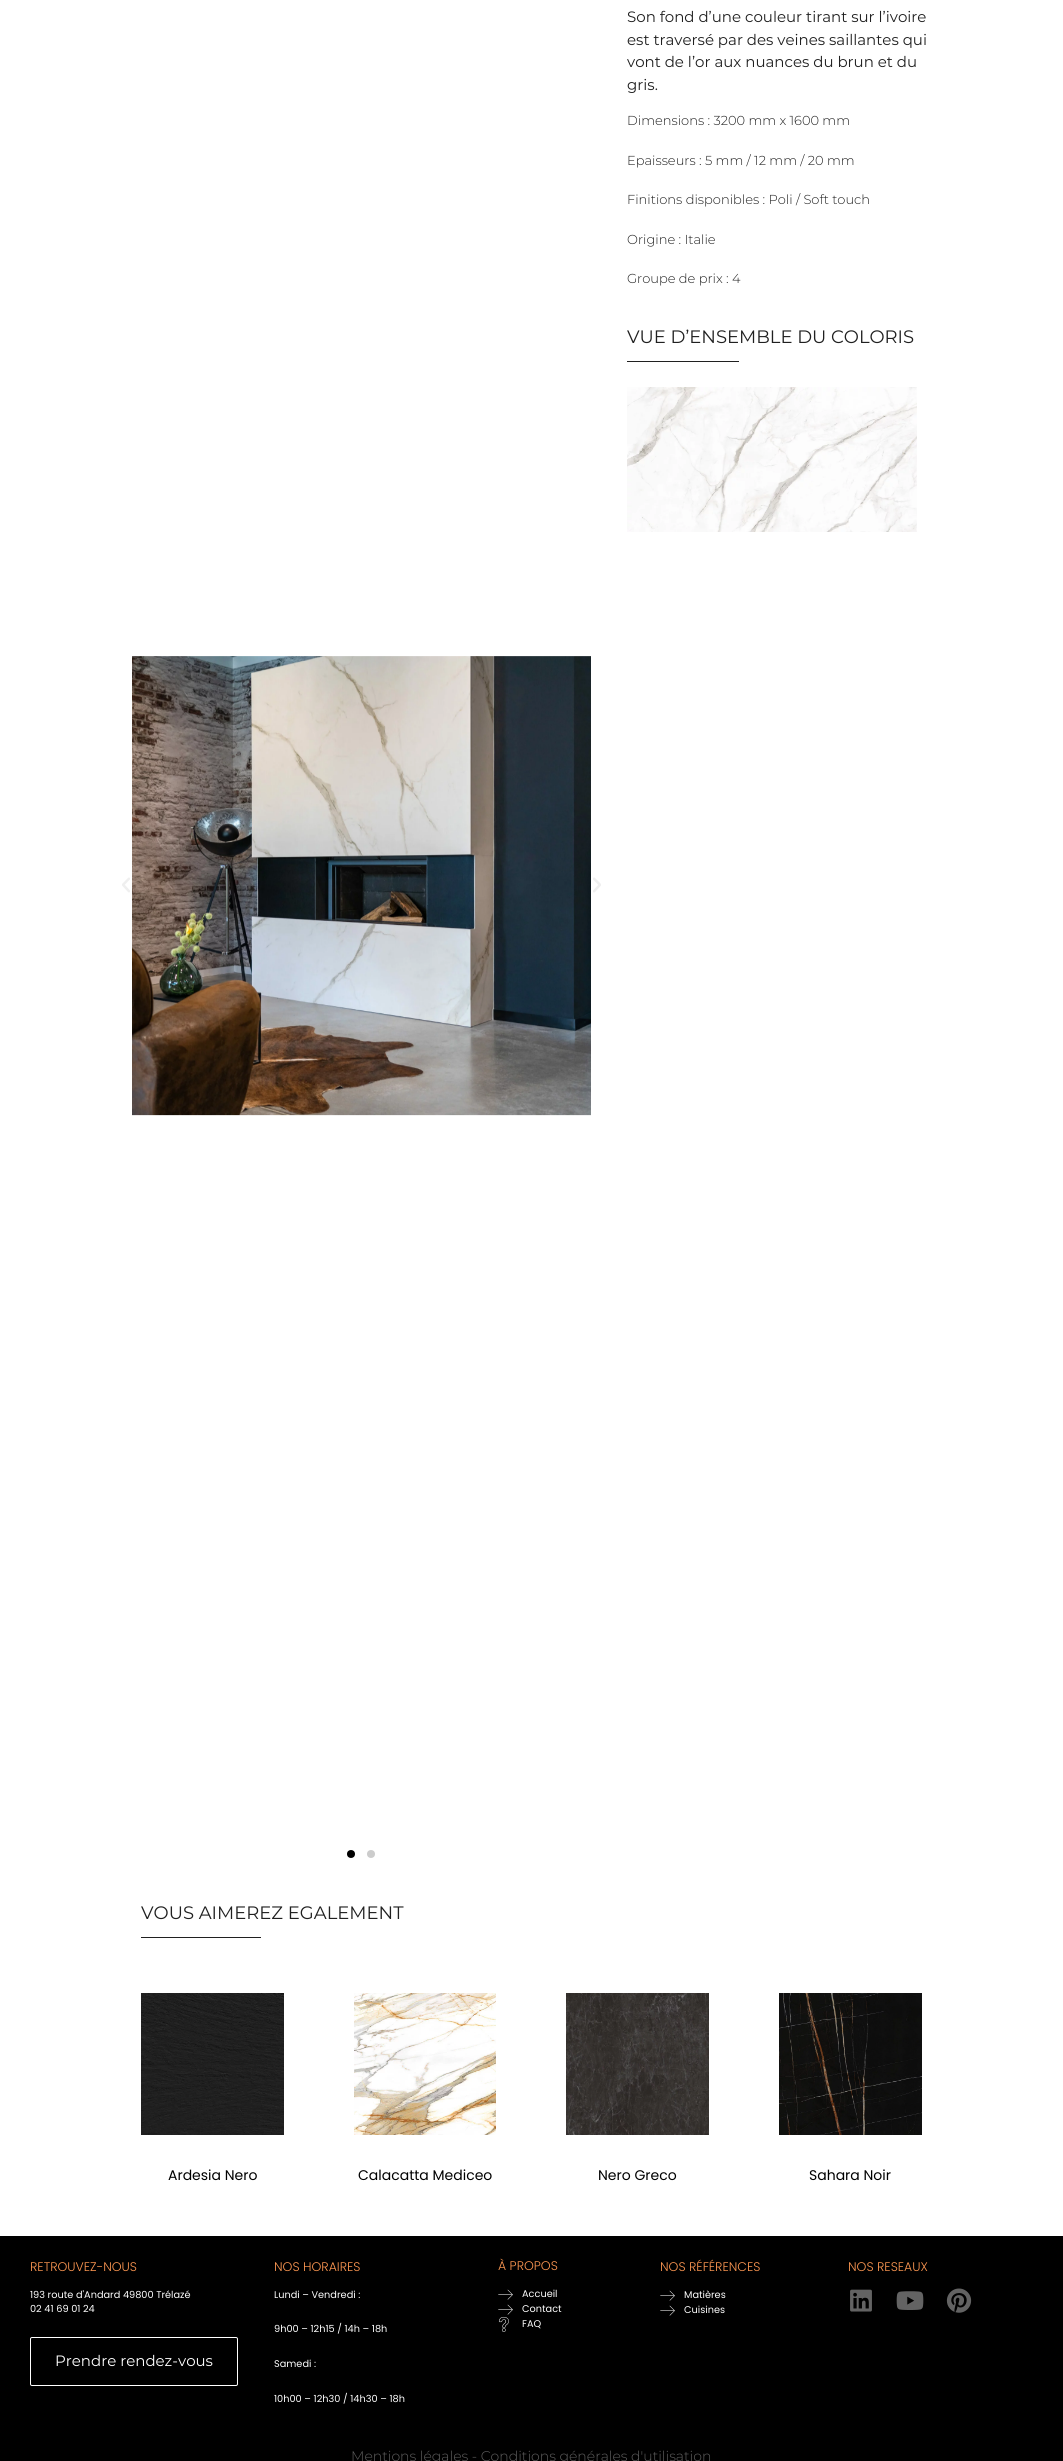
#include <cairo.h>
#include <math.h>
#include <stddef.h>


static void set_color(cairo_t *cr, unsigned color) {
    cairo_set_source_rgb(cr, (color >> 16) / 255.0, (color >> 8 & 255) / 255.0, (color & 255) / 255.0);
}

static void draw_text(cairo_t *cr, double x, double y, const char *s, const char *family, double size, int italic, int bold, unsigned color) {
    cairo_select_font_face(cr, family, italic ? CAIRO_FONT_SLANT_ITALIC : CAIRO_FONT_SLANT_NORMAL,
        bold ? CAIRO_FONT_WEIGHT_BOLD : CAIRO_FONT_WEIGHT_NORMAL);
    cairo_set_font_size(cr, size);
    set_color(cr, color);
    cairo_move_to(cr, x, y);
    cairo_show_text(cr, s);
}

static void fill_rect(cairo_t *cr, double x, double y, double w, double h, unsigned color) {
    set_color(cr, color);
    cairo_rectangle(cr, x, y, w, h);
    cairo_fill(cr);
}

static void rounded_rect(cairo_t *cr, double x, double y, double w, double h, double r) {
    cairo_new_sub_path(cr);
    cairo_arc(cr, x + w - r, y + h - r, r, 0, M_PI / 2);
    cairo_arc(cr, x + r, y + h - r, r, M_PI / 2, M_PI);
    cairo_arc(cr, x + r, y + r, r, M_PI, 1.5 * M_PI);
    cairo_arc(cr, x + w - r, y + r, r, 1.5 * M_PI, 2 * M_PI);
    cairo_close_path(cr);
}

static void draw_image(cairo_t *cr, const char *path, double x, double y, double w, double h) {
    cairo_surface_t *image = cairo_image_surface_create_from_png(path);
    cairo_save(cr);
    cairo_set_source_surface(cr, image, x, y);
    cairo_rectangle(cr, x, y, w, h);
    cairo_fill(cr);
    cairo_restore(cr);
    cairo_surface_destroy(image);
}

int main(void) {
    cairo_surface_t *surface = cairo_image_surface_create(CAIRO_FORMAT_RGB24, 1063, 2461);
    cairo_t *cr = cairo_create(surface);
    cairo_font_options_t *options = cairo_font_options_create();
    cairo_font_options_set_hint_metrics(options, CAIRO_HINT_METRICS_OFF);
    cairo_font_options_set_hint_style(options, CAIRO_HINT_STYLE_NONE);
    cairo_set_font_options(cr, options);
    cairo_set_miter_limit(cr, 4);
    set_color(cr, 0xFFFFFF);
    cairo_paint(cr);
    draw_text(cr, 627, 22, "Son fond d’une couleur tirant sur l’ivoire", "Montserrat", 15, 0, 0, 0x202020);
    draw_text(cr, 627, 45, "est traversé par des veines saillantes qui", "Montserrat", 15, 0, 0, 0x202020);
    draw_text(cr, 627, 67, "vont de l’or aux nuances du brun et du", "Montserrat", 15, 0, 0, 0x202020);
    draw_text(cr, 627, 90, "gris.", "Montserrat", 15, 0, 0, 0x202020);
    draw_text(cr, 627, 125, "Dimensions : 3200 mm x 1600 mm", "Montserrat Light", 13, 0, 0, 0x202020);
    draw_text(cr, 627, 165, "Epaisseurs : 5 mm / 12 mm / 20 mm", "Montserrat Light", 13, 0, 0, 0x202020);
    draw_text(cr, 627, 204, "Finitions disponibles : Poli / Soft touch", "Montserrat Light", 13, 0, 0, 0x202020);
    draw_text(cr, 627, 244, "Origine : Italie", "Montserrat Light", 13, 0, 0, 0x202020);
    draw_text(cr, 627, 283, "Groupe de prix : 4", "Montserrat Light", 13, 0, 0, 0x202020);
    draw_text(cr, 627, 343, "VUE D’ENSEMBLE DU COLORIS", "Montserrat", 18, 0, 0, 0x202020);
    fill_rect(cr, 627, 361, 112, 1, 0x202020);
    draw_image(cr, "assets/img1.png", 627, 387, 290, 145);
    draw_image(cr, "assets/img2.png", 122, 877, 8, 16);
    draw_image(cr, "assets/img3.png", 132, 656, 459, 460);
    draw_image(cr, "assets/img4.png", 593, 877, 8, 16);
    set_color(cr, 0x000000);
    cairo_arc(cr, 351, 1854, 4, 0, 2 * M_PI);
    cairo_fill(cr);
    set_color(cr, 0xCCCCCC);
    cairo_arc(cr, 371, 1854, 4, 0, 2 * M_PI);
    cairo_fill(cr);
    draw_text(cr, 141, 1919, "VOUS AIMEREZ EGALEMENT", "Montserrat", 18, 0, 0, 0x202020);
    fill_rect(cr, 141, 1937, 120, 1, 0x202020);
    draw_image(cr, "assets/img5.png", 141, 1993, 143, 142);
    draw_text(cr, 168, 2180, "Ardesia Nero", "Poppins", 14, 0, 0, 0x000000);
    draw_image(cr, "assets/img6.png", 354, 1993, 142, 142);
    draw_text(cr, 358, 2180, "Calacatta Mediceo", "Poppins", 14, 0, 0, 0x000000);
    draw_image(cr, "assets/img7.png", 566, 1993, 143, 142);
    draw_text(cr, 598, 2180, "Nero Greco", "Poppins", 14, 0, 0, 0x000000);
    draw_image(cr, "assets/img8.png", 779, 1993, 143, 142);
    draw_text(cr, 809, 2180, "Sahara Noir", "Poppins", 14, 0, 0, 0x000000);
    fill_rect(cr, 0, 2236, 1063, 225, 0x000000);
    draw_text(cr, 30, 2271, "RETROUVEZ-NOUS", "Poppins Light", 12.5, 0, 0, 0xFF9852);
    draw_text(cr, 30, 2298, "193 route d'Andard 49800 Trélazé", "Poppins", 9.75, 0, 0, 0xFFFFFF);
    draw_text(cr, 30, 2312, "02 41 69 01 24", "Poppins", 9.75, 0, 0, 0xFFFFFF);
    rounded_rect(cr, 30.5, 2337.5, 207, 48, 1.5);
    cairo_set_line_width(cr, 1);
    cairo_stroke(cr);
    draw_text(cr, 55, 2366, "Prendre rendez-vous", "Montserrat", 15, 0, 0, 0xFFFFFF);
    draw_text(cr, 274, 2271, "NOS HORAIRES", "Poppins Light", 12.5, 0, 0, 0xFF9852);
    draw_text(cr, 274, 2298, "Lundi – Vendredi :", "Poppins", 9.75, 0, 0, 0xFFFFFF);
    draw_text(cr, 274, 2332, "9h00 – 12h15 / 14h – 18h", "Poppins", 9.75, 0, 0, 0xFFFFFF);
    draw_text(cr, 274, 2367, "Samedi :", "Poppins", 9.75, 0, 0, 0xFFFFFF);
    draw_text(cr, 274, 2402, "10h00 – 12h30 / 14h30 – 18h", "Poppins", 9.75, 0, 0, 0xFFFFFF);
    draw_text(cr, 498, 2270, "À PROPOS", "Poppins Light", 12.5, 0, 0, 0xFF9852);
    draw_image(cr, "assets/img9.png", 498, 2289, 15, 11);
    draw_text(cr, 522, 2297, "Accueil", "Poppins", 9.75, 0, 0, 0xFFFFFF);
    draw_image(cr, "assets/img9.png", 498, 2304, 15, 11);
    draw_text(cr, 522, 2312, "Contact", "Poppins", 9.75, 0, 0, 0xFFFFFF);
    draw_image(cr, "assets/img10.png", 498, 2316, 11, 16);
    draw_text(cr, 522, 2327, "FAQ", "Poppins", 9.75, 0, 0, 0xFFFFFF);
    draw_text(cr, 660, 2271, "NOS RÉFÉRENCES", "Poppins Light", 12.5, 0, 0, 0xFF9852);
    draw_image(cr, "assets/img9.png", 660, 2290, 15, 11);
    draw_text(cr, 684, 2298, "Matières", "Poppins", 9.75, 0, 0, 0xFFFFFF);
    draw_image(cr, "assets/img9.png", 660, 2305, 15, 11);
    draw_text(cr, 684, 2313, "Cuisines", "Poppins", 9.75, 0, 0, 0xFFFFFF);
    draw_text(cr, 848, 2271, "NOS RESEAUX", "Poppins Light", 12.5, 0, 0, 0xFF9852);
    draw_image(cr, "assets/img11.png", 850, 2289, 22, 23);
    draw_image(cr, "assets/img12.png", 896, 2291, 28, 19);
    draw_image(cr, "assets/img13.png", 946, 2288, 26, 25);
    draw_text(cr, 351, 2461, "Mentions légales - Conditions générales d'utilisation", "Montserrat Light", 14, 0, 0, 0x5E5E5E);
    cairo_surface_write_to_png(surface, "output.png");
    cairo_font_options_destroy(options);
    cairo_destroy(cr);
    cairo_surface_destroy(surface);
    return 0;
}
